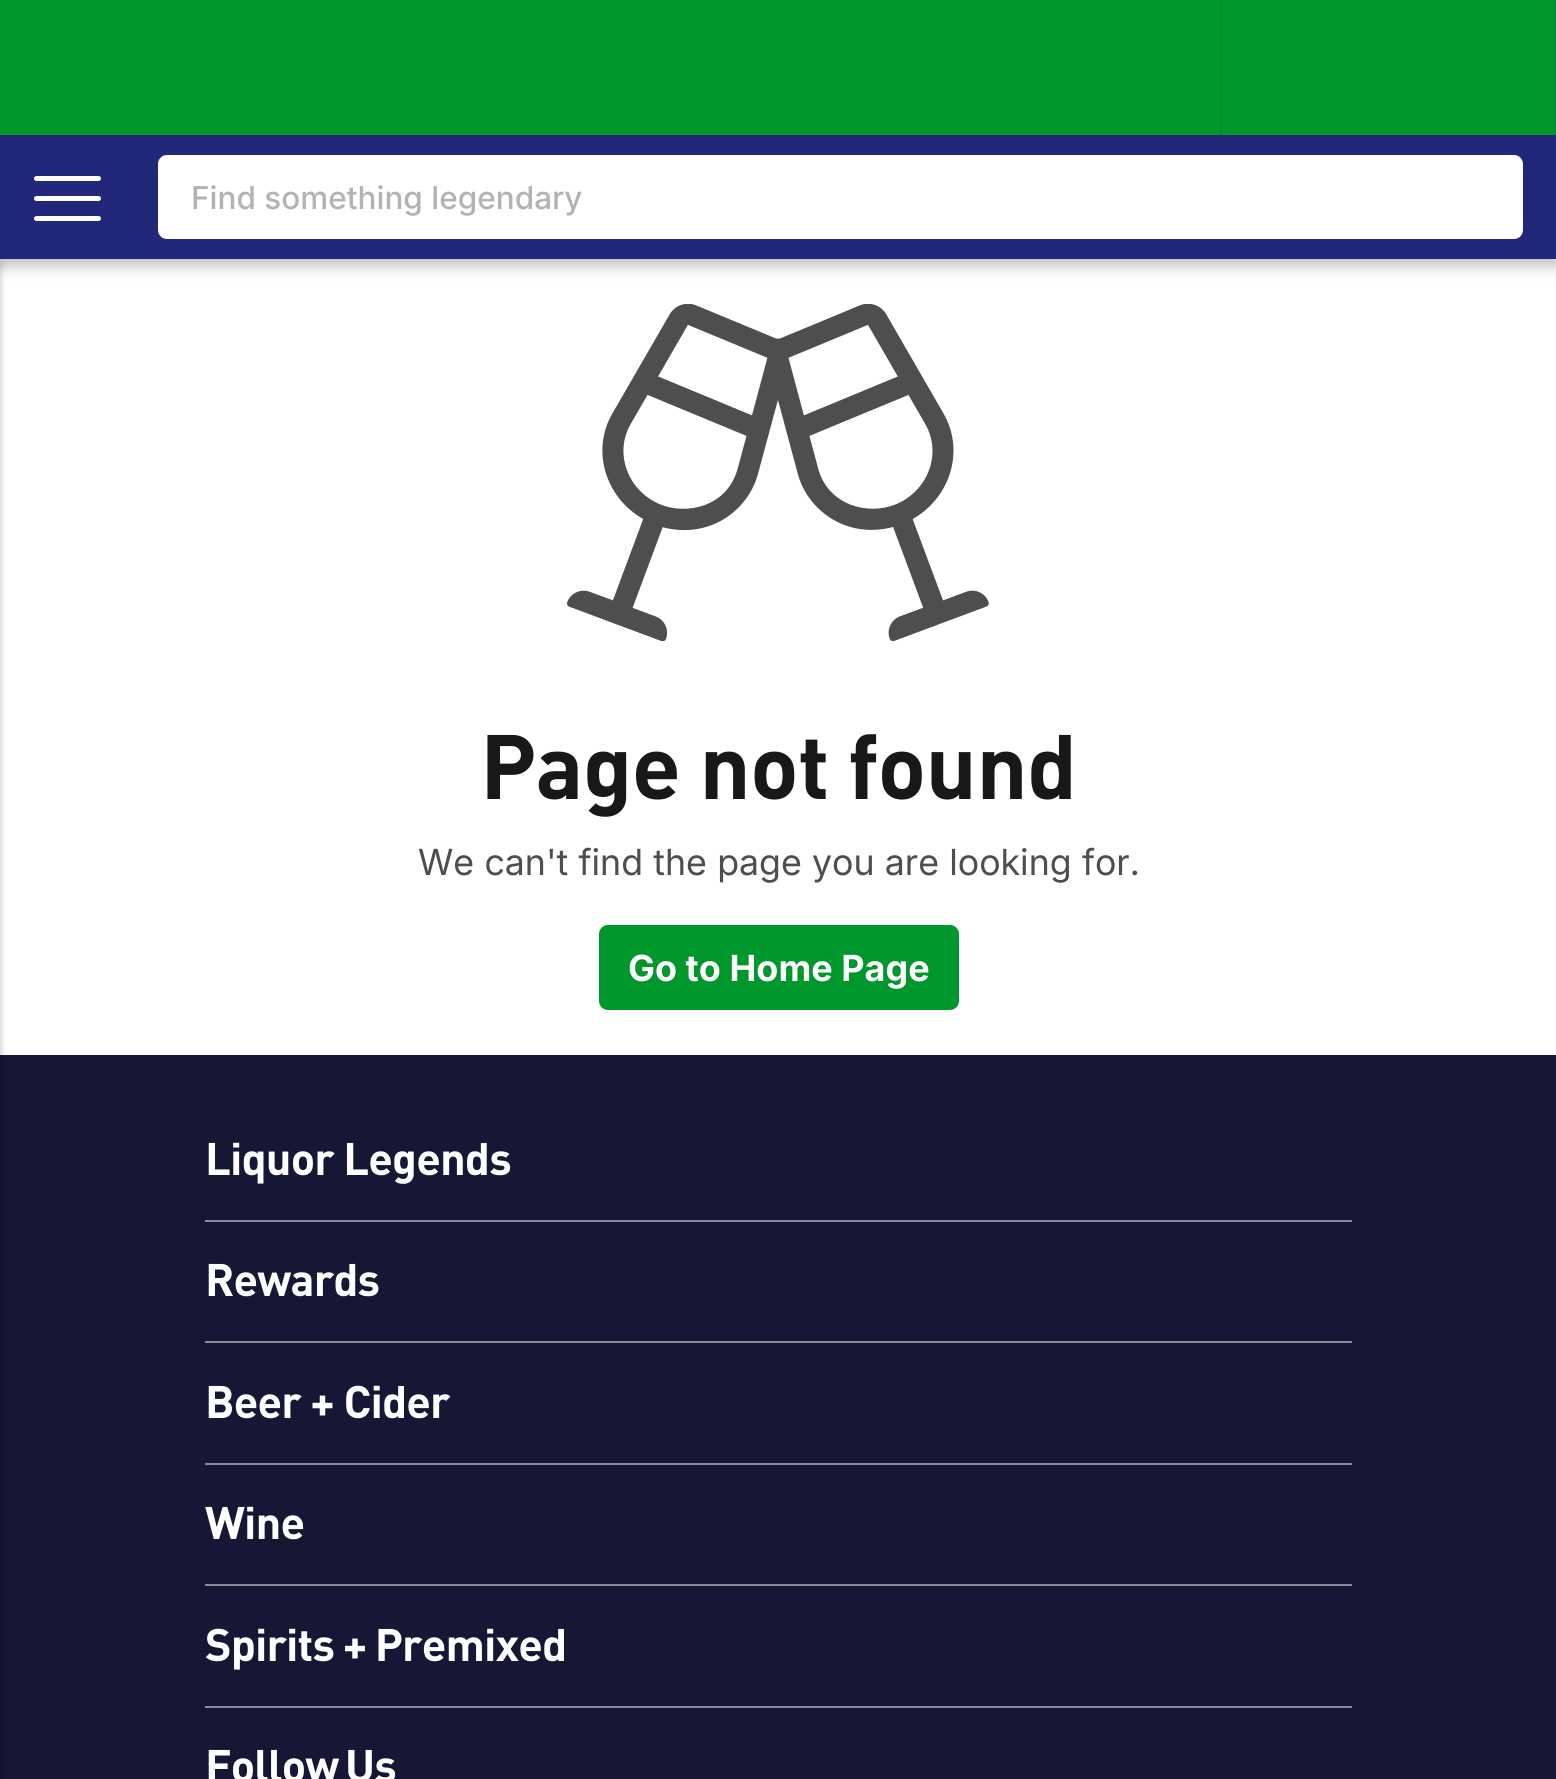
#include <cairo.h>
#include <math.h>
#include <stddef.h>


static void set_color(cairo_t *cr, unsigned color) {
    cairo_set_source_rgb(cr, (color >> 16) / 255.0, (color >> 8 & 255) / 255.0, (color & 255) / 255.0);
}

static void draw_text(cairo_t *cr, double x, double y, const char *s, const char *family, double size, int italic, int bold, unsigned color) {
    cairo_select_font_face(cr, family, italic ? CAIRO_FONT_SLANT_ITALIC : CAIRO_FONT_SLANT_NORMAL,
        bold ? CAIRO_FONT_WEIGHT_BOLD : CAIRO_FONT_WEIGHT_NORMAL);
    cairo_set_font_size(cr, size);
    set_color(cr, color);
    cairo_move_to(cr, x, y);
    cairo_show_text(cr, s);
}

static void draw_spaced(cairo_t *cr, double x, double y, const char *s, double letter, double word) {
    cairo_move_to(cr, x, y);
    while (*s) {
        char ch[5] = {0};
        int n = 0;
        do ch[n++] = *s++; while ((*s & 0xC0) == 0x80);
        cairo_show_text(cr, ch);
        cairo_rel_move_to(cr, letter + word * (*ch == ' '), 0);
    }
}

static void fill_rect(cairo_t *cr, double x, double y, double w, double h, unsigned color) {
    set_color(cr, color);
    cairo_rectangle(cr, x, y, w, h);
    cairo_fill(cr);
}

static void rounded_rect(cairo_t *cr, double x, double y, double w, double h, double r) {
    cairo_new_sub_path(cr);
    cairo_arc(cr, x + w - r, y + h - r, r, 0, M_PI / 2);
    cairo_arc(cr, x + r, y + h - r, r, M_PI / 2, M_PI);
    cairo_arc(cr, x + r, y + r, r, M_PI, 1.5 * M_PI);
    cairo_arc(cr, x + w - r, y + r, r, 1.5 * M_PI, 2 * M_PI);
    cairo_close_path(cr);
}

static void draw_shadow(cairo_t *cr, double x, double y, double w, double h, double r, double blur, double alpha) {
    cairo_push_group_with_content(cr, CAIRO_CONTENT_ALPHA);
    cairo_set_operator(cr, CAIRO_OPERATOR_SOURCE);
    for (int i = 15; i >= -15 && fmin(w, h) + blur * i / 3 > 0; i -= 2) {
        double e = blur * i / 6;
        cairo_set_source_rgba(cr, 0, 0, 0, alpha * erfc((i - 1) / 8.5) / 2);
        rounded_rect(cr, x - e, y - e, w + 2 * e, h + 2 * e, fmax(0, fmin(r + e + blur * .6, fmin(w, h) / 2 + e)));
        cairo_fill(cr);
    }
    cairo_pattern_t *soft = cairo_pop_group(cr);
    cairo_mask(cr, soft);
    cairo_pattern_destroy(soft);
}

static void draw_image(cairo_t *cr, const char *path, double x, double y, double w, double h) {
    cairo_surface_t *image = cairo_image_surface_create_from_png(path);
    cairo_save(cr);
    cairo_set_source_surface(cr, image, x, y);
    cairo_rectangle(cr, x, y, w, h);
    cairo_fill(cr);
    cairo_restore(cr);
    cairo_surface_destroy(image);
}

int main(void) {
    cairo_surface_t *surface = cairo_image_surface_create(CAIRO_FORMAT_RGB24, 1556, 1779);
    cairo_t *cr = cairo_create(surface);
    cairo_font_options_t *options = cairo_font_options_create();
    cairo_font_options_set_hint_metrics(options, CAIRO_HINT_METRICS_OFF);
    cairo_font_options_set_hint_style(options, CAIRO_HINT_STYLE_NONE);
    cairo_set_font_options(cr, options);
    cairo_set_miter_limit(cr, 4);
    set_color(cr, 0xFFFFFF);
    cairo_paint(cr);
    set_color(cr, 0x000000);
    draw_shadow(cr, 0, 7, 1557, 259, 0, 7, 0.25);
    fill_rect(cr, 0, 0, 1555, 135, 0x00982C);
    fill_rect(cr, 1555, 0, 1, 135, 0x008C2C);
    fill_rect(cr, 1220, 0, 2, 135, 0x008C2C);
    fill_rect(cr, 0, 135, 1556, 124, 0x21287A);
    set_color(cr, 0xFFFFFF);
    rounded_rect(cr, 34, 176, 67, 5, 2.5);
    cairo_fill(cr);
    rounded_rect(cr, 34, 196, 67, 5, 2.5);
    cairo_fill(cr);
    rounded_rect(cr, 34, 216, 67, 5, 2.5);
    cairo_fill(cr);
    rounded_rect(cr, 158, 155, 1365, 84, 9);
    cairo_fill(cr);
    draw_text(cr, 191, 209, "Find something legendary", "Inter Medium", 31.5, 0, 0, 0xB3B3B3);
    fill_rect(cr, 0, 1055, 1556, 724, 0x151734);
    set_color(cr, 0x000000);
    draw_shadow(cr, -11, 259, 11, 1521, 0, 3.5, 0.25);
    draw_image(cr, "assets/img1.png", 567, 304, 422, 337);
    cairo_select_font_face(cr, "DIN", CAIRO_FONT_SLANT_NORMAL, CAIRO_FONT_WEIGHT_BOLD);
    cairo_set_font_size(cr, 90);
    set_color(cr, 0x181818);
    draw_spaced(cr, 480, 799, "Page not found", -0.9, -1);
    cairo_select_font_face(cr, "Inter", CAIRO_FONT_SLANT_NORMAL, CAIRO_FONT_WEIGHT_NORMAL);
    cairo_set_font_size(cr, 36);
    set_color(cr, 0x4E4E4E);
    draw_spaced(cr, 418, 875, "We can't find the page you are looking for.", 0, 0.25);
    set_color(cr, 0x00982C);
    rounded_rect(cr, 600, 926, 358, 83, 8);
    cairo_fill_preserve(cr);
    cairo_stroke(cr);
    draw_text(cr, 628, 981, "Go to Home Page", "Inter", 36, 0, 1, 0xFFFFFF);
    fill_rect(cr, 205, 1220, 1147, 2, 0x8A8B9A);
    cairo_select_font_face(cr, "DIN", CAIRO_FONT_SLANT_NORMAL, CAIRO_FONT_WEIGHT_BOLD);
    cairo_set_font_size(cr, 45);
    set_color(cr, 0xFFFFFF);
    draw_spaced(cr, 205, 1175, "Liquor Legends", -0.9, 0);
    fill_rect(cr, 205, 1341, 1147, 2, 0x8A8B9A);
    set_color(cr, 0xFFFFFF);
    draw_spaced(cr, 205, 1296, "Rewards", -0.9, 0);
    fill_rect(cr, 205, 1463, 1147, 2, 0x8A8B9A);
    set_color(cr, 0xFFFFFF);
    draw_spaced(cr, 205, 1418, "Beer + Cider", -0.9, 0);
    fill_rect(cr, 205, 1584, 1147, 2, 0x8A8B9A);
    set_color(cr, 0xFFFFFF);
    draw_spaced(cr, 205, 1539, "Wine", -0.9, 0);
    fill_rect(cr, 205, 1706, 1147, 2, 0x8A8B9A);
    set_color(cr, 0xFFFFFF);
    draw_spaced(cr, 205, 1661, "Spirits + Premixed", -0.9, -1);
    draw_spaced(cr, 205, 1782, "Follow Us", -0.9, -3);
    cairo_surface_write_to_png(surface, "output.png");
    cairo_font_options_destroy(options);
    cairo_destroy(cr);
    cairo_surface_destroy(surface);
    return 0;
}
